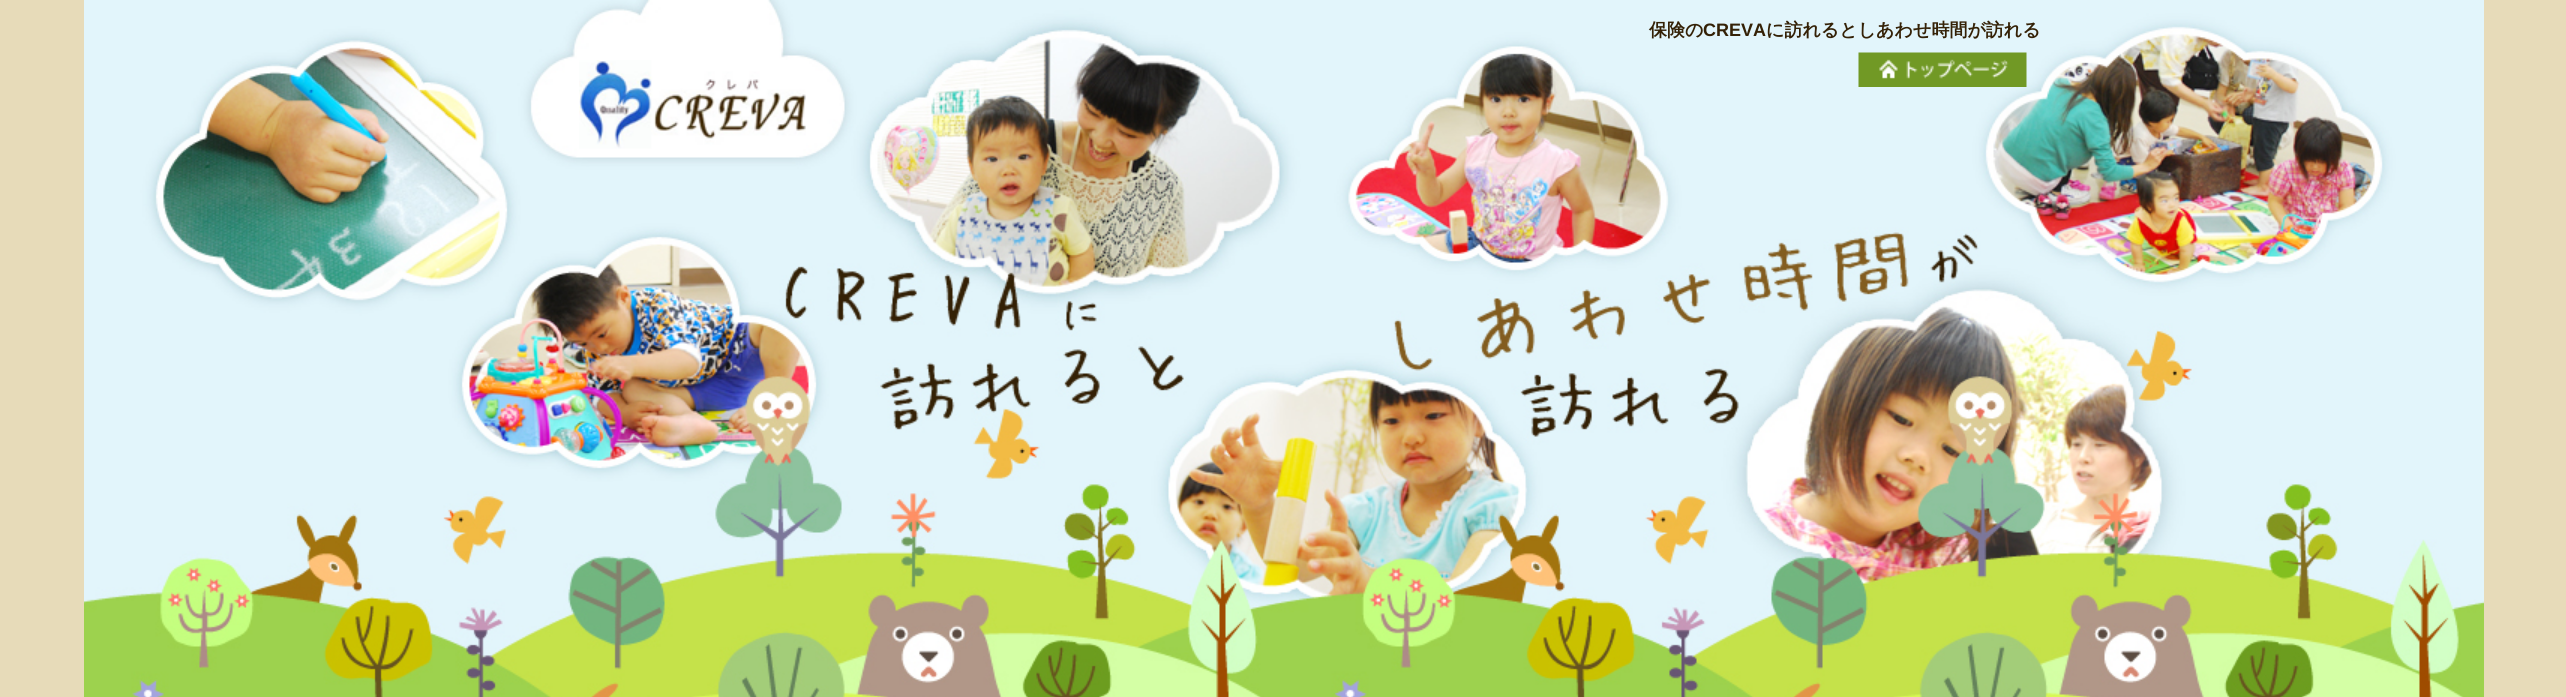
#include <cairo.h>
#include <math.h>
#include <stddef.h>


static void set_color(cairo_t *cr, unsigned color) {
    cairo_set_source_rgb(cr, (color >> 16) / 255.0, (color >> 8 & 255) / 255.0, (color & 255) / 255.0);
}

static void draw_text(cairo_t *cr, double x, double y, const char *s, const char *family, double size, int italic, int bold, unsigned color) {
    cairo_select_font_face(cr, family, italic ? CAIRO_FONT_SLANT_ITALIC : CAIRO_FONT_SLANT_NORMAL,
        bold ? CAIRO_FONT_WEIGHT_BOLD : CAIRO_FONT_WEIGHT_NORMAL);
    cairo_set_font_size(cr, size);
    set_color(cr, color);
    cairo_move_to(cr, x, y);
    cairo_show_text(cr, s);
}

static void draw_image(cairo_t *cr, const char *path, double x, double y, double w, double h) {
    cairo_surface_t *image = cairo_image_surface_create_from_png(path);
    cairo_save(cr);
    cairo_set_source_surface(cr, image, x, y);
    cairo_rectangle(cr, x, y, w, h);
    cairo_fill(cr);
    cairo_restore(cr);
    cairo_surface_destroy(image);
}

int main(void) {
    cairo_surface_t *surface = cairo_image_surface_create(CAIRO_FORMAT_RGB24, 2566, 697);
    cairo_t *cr = cairo_create(surface);
    cairo_font_options_t *options = cairo_font_options_create();
    cairo_font_options_set_hint_metrics(options, CAIRO_HINT_METRICS_OFF);
    cairo_font_options_set_hint_style(options, CAIRO_HINT_STYLE_NONE);
    cairo_set_font_options(cr, options);
    cairo_set_miter_limit(cr, 4);
    set_color(cr, 0xE7DBB9);
    cairo_paint(cr);
    draw_image(cr, "assets/img1.png", 84, 0, 2400, 697);
    draw_text(cr, 1649, 36, "保険の", "WenQuanYi Zen Hei", 18, 0, 1, 0x342106);
    draw_text(cr, 1703, 36, "CREVA", "Liberation Sans", 18, 0, 1, 0x342106);
    draw_text(cr, 1766, 36, "に訪れるとしあわせ時間が訪れる", "WenQuanYi Zen Hei", 18, 0, 1, 0x342106);
    draw_image(cr, "assets/img2.png", 579, 60, 227, 89);
    draw_image(cr, "assets/img3.png", 1858, 52, 169, 35);
    cairo_surface_write_to_png(surface, "output.png");
    cairo_font_options_destroy(options);
    cairo_destroy(cr);
    cairo_surface_destroy(surface);
    return 0;
}
